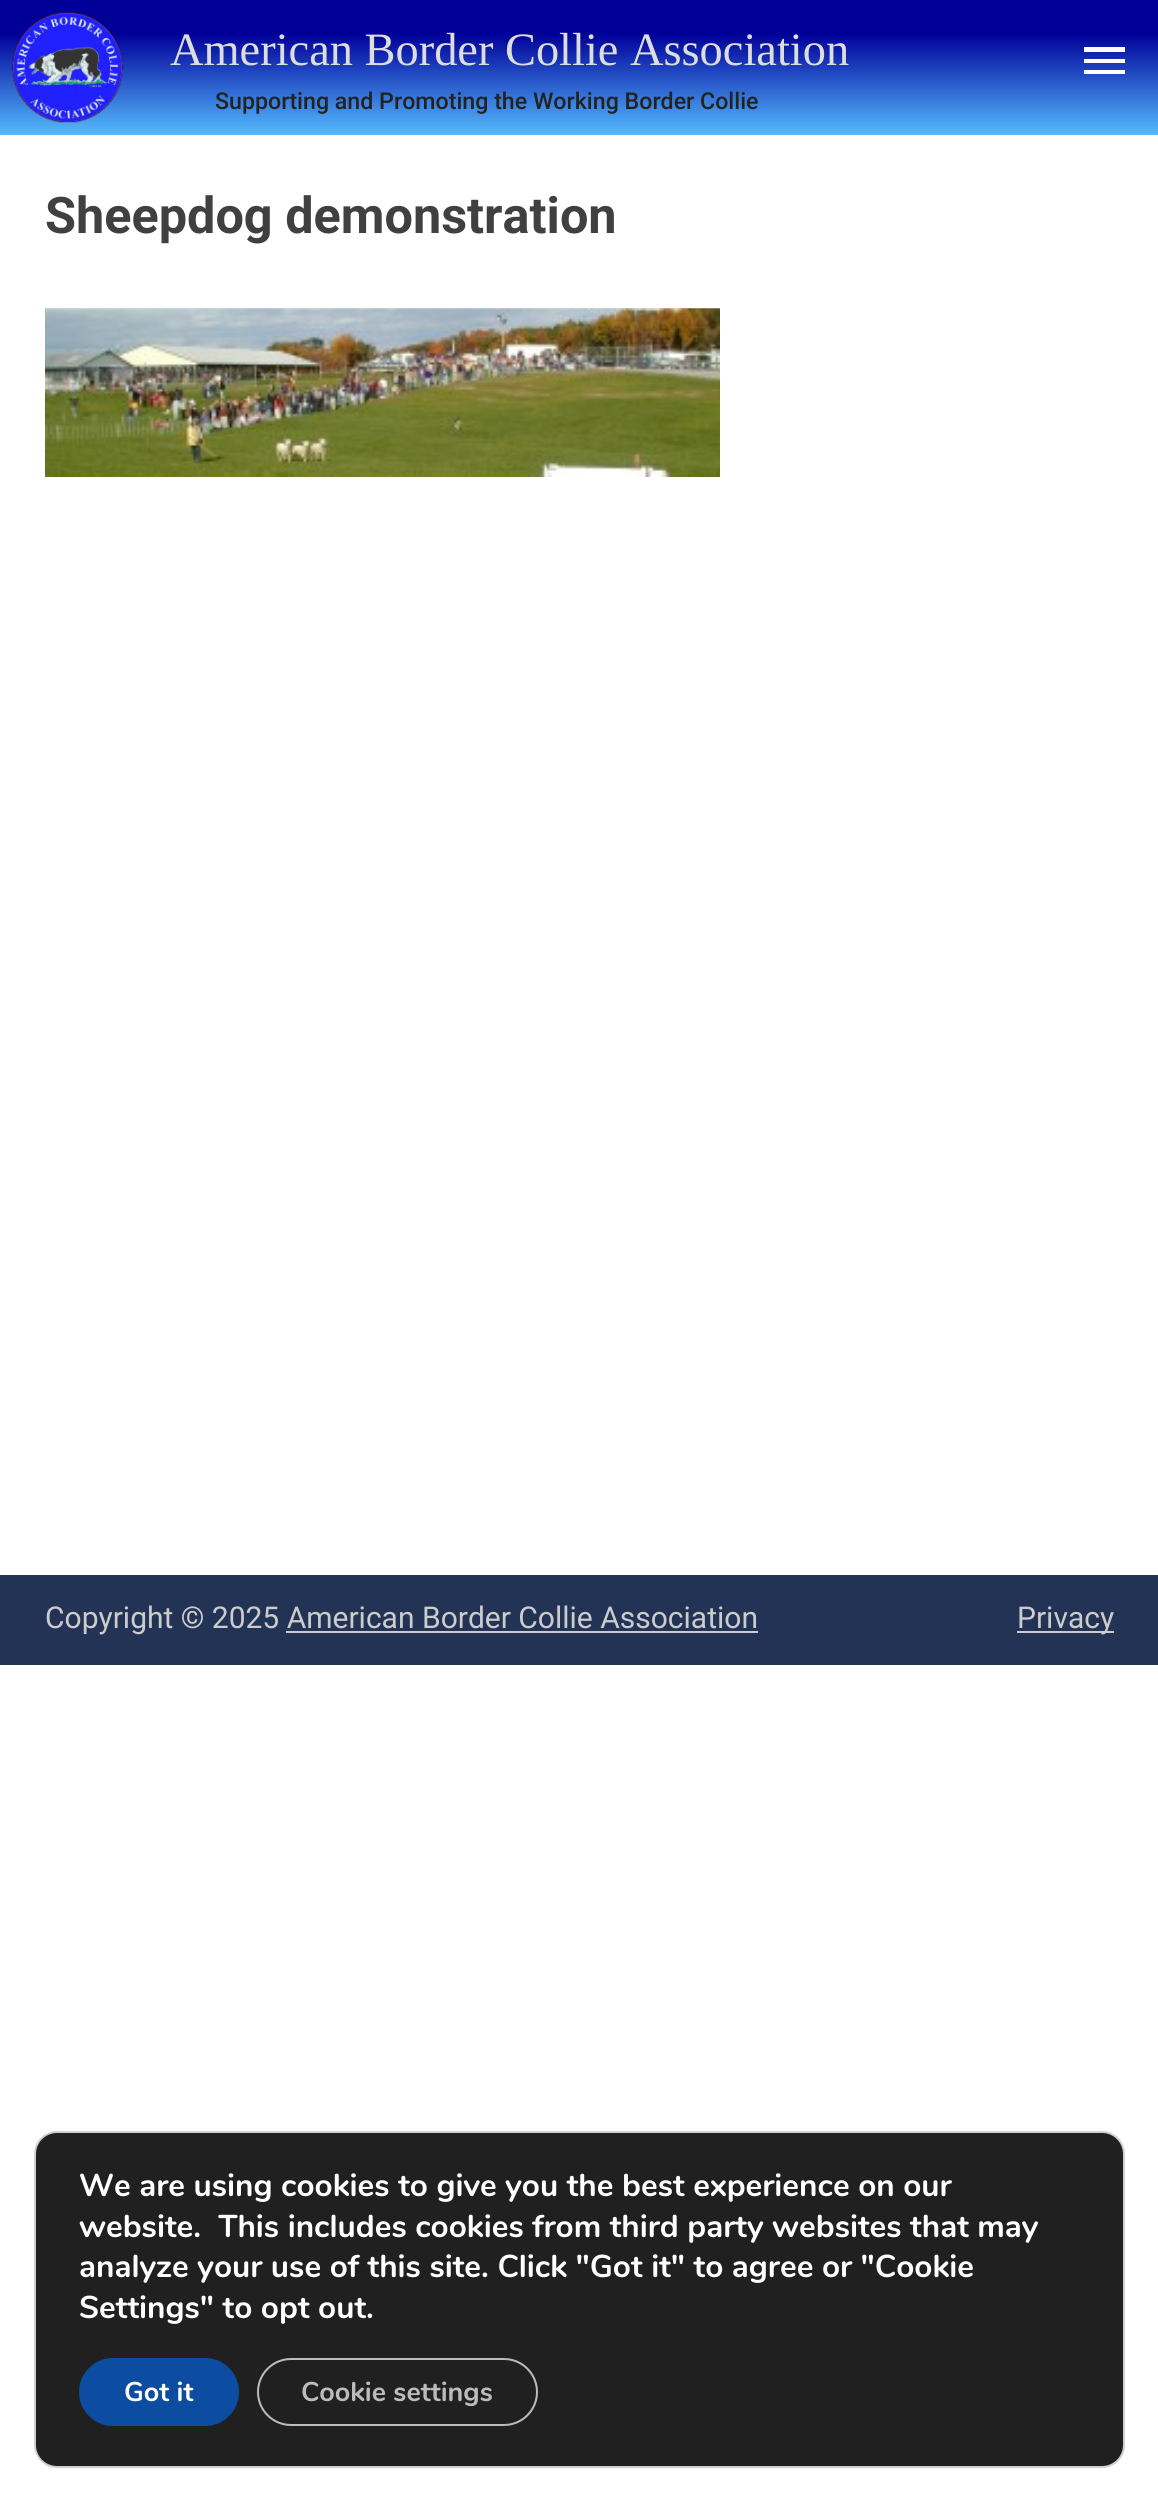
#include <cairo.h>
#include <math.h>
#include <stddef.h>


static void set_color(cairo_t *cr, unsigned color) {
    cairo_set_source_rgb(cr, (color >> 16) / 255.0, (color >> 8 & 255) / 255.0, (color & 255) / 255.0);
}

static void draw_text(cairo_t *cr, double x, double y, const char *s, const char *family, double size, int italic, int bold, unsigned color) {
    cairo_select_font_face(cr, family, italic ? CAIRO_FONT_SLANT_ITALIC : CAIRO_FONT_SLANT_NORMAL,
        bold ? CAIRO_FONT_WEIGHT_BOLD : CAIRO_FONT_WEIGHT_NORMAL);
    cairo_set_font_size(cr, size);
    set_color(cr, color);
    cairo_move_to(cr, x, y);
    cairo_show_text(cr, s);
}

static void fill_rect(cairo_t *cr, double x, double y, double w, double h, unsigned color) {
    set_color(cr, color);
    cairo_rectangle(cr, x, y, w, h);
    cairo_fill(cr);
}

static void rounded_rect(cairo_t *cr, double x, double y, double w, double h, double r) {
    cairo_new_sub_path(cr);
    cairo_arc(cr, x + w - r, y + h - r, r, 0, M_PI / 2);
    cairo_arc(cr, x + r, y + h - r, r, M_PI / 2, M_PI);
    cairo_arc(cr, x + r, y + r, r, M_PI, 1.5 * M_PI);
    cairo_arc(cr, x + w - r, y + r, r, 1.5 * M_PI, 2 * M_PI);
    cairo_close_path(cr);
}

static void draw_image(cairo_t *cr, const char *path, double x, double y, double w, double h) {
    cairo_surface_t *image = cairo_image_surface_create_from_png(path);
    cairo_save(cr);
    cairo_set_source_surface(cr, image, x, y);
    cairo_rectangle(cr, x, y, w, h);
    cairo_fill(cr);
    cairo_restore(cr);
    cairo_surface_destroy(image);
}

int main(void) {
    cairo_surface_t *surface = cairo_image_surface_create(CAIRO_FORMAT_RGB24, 1158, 2502);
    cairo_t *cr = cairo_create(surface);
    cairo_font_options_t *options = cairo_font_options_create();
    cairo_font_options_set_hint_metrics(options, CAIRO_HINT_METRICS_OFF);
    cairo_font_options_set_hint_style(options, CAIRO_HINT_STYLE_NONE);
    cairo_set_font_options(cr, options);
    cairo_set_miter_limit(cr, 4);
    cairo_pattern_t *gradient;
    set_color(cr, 0xFFFFFF);
    cairo_paint(cr);
    gradient = cairo_pattern_create_linear(579, 0, 579, 135);
    cairo_pattern_add_color_stop_rgba(gradient, 0.25, 0, 0, 0.6, 1);
    cairo_pattern_add_color_stop_rgba(gradient, 1, 0.333, 0.733, 1, 1);
    cairo_set_source(cr, gradient);
    cairo_pattern_destroy(gradient);
    cairo_rectangle(cr, 0, 0, 1158, 135);
    cairo_fill(cr);
    draw_image(cr, "assets/img1.png", 11, 11, 113, 112);
    draw_text(cr, 170, 65, "American Border Collie Association", "Liberation Serif", 46.4, 0, 0, 0xDDDDDD);
    set_color(cr, 0xFFFFFF);
    cairo_new_path(cr);
    cairo_move_to(cr, 1084, 47);
    cairo_line_to(cr, 1125, 47);
    cairo_line_to(cr, 1125, 52);
    cairo_line_to(cr, 1084, 52);
    cairo_close_path(cr);
    cairo_move_to(cr, 1084, 63);
    cairo_line_to(cr, 1084, 59);
    cairo_line_to(cr, 1125, 59);
    cairo_line_to(cr, 1125, 63);
    cairo_close_path(cr);
    cairo_move_to(cr, 1084, 74);
    cairo_line_to(cr, 1084, 70);
    cairo_line_to(cr, 1125, 70);
    cairo_line_to(cr, 1125, 74);
    cairo_close_path(cr);
    cairo_fill(cr);
    draw_text(cr, 215, 109, "Supporting and Promoting the Working Border Collie", "Roboto Medium", 23.2, 0, 0, 0x222222);
    draw_text(cr, 45, 233, "Sheepdog demonstration", "Roboto", 50.4, 0, 1, 0x404040);
    draw_image(cr, "assets/img2.png", 45, 308, 675, 169);
    fill_rect(cr, 0, 1575, 1158, 90, 0x223355);
    draw_text(cr, 45, 1628, "Copyright © 2025 American Border Collie Association", "Roboto", 30, 0, 0, 0xCCCCCC);
    fill_rect(cr, 286, 1631, 472, 2, 0xCCCCCC);
    fill_rect(cr, 1017, 1631, 97, 2, 0xCCCCCC);
    draw_text(cr, 1017, 1628, "Privacy", "Roboto", 30, 0, 0, 0xCCCCCC);
    set_color(cr, 0x202020);
    rounded_rect(cr, 35, 2132, 1089, 335, 22);
    cairo_fill_preserve(cr);
    set_color(cr, 0xD3CED2);
    cairo_stroke(cr);
    draw_text(cr, 79, 2196, "We are using cookies to give you the best experience on our", "Nunito", 31.5, 0, 1, 0xFFFFFF);
    draw_text(cr, 79, 2237, "website.  This includes cookies from third party websites that may", "Nunito", 31.5, 0, 1, 0xFFFFFF);
    draw_text(cr, 79, 2277, "analyze your use of this site. Click \"Got it\" to agree or \"Cookie", "Nunito", 31.5, 0, 1, 0xFFFFFF);
    draw_text(cr, 79, 2318, "Settings\" to opt out.", "Nunito", 31.5, 0, 1, 0xFFFFFF);
    set_color(cr, 0x0C4DA2);
    rounded_rect(cr, 79, 2358, 160, 68, 34);
    cairo_fill(cr);
    draw_text(cr, 124, 2401, "Got it", "Nunito", 27, 0, 1, 0xFFFFFF);
    rounded_rect(cr, 258, 2359, 279, 66, 33);
    set_color(cr, 0xBCBCBC);
    cairo_stroke(cr);
    draw_text(cr, 301, 2401, "Cookie settings", "Nunito", 27, 0, 1, 0xBCBCBC);
    cairo_surface_write_to_png(surface, "output.png");
    cairo_font_options_destroy(options);
    cairo_destroy(cr);
    cairo_surface_destroy(surface);
    return 0;
}
